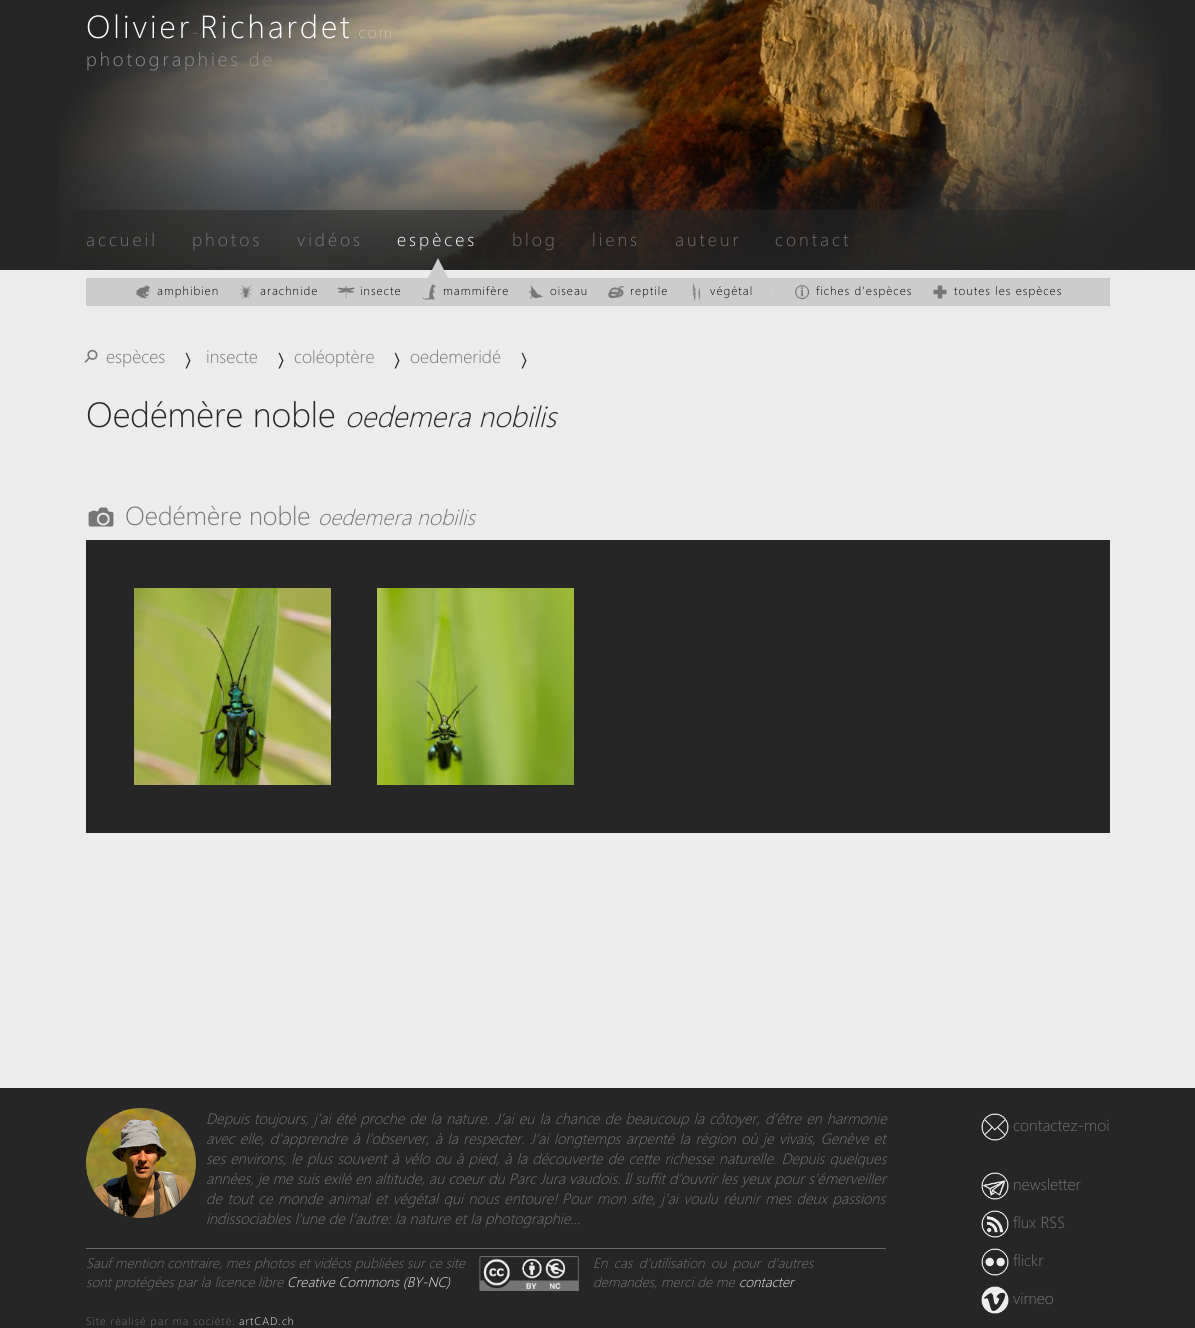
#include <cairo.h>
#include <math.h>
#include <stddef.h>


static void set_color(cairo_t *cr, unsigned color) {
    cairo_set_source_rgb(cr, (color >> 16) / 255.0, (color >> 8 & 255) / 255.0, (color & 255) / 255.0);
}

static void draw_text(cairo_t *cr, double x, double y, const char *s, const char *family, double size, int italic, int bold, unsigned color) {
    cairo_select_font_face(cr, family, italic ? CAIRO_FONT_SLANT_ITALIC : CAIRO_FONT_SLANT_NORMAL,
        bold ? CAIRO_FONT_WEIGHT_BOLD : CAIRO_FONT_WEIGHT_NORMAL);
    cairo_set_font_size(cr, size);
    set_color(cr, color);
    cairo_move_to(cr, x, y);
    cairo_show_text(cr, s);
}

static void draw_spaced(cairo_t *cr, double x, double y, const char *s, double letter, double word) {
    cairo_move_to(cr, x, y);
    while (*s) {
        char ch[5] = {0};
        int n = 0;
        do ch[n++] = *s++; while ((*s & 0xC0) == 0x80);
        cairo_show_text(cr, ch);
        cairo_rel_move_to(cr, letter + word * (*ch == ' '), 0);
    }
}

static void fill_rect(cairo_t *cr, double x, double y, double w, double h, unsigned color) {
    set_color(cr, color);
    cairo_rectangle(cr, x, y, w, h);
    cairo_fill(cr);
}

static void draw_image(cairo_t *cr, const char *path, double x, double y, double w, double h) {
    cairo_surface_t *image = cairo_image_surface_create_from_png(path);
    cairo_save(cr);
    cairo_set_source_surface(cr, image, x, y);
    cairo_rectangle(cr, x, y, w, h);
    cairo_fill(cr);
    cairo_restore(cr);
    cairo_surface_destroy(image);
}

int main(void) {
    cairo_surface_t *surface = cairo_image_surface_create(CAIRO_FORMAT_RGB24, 1195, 1328);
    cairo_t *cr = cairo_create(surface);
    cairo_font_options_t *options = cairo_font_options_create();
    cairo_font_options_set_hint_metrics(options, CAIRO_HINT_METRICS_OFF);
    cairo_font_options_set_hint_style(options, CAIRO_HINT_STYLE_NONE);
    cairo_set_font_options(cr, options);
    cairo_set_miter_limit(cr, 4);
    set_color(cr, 0xECECEC);
    cairo_paint(cr);
    fill_rect(cr, 0, 0, 1195, 270, 0x262626);
    draw_image(cr, "assets/img1.png", 59, 0, 1102, 270);
    cairo_select_font_face(cr, "Segoe UI Light", CAIRO_FONT_SLANT_NORMAL, CAIRO_FONT_WEIGHT_NORMAL);
    cairo_set_font_size(cr, 32);
    set_color(cr, 0xFFFFFF);
    draw_spaced(cr, 86, 38, "Olivier", 3, 0);
    cairo_set_font_size(cr, 16);
    set_color(cr, 0x7D7D7D);
    draw_spaced(cr, 192, 38, "-", 2, 0);
    cairo_set_font_size(cr, 32);
    set_color(cr, 0xFFFFFF);
    draw_spaced(cr, 200, 38, "Richardet", 3, 0);
    cairo_set_font_size(cr, 16);
    set_color(cr, 0xC6BEAF);
    draw_spaced(cr, 353, 38, ".com", 2, 0);
    cairo_set_font_size(cr, 19);
    set_color(cr, 0x93928F);
    draw_spaced(cr, 86, 66, "photographies de", 3, 0);
    cairo_set_source_rgba(cr, 0.149, 0.149, 0.149, 0.5);
    cairo_rectangle(cr, 71, 210, 995, 60);
    cairo_fill(cr);
    cairo_set_font_size(cr, 18);
    set_color(cr, 0x757575);
    draw_spaced(cr, 86, 246, "accueil", 3, 0);
    draw_spaced(cr, 192, 246, "photos", 3, 0);
    set_color(cr, 0x7D7D7D);
    draw_spaced(cr, 297, 246, "vidéos", 3, 0);
    set_color(cr, 0xFFFFFF);
    draw_spaced(cr, 397, 246, "espèces", 3, 0);
    fill_rect(cr, 86, 278, 1024, 28, 0xCCCCCC);
    cairo_new_path(cr);
    cairo_move_to(cr, 451, 284);
    cairo_line_to(cr, 425, 284);
    cairo_line_to(cr, 438, 258);
    cairo_close_path(cr);
    cairo_fill(cr);
    set_color(cr, 0x746F6D);
    draw_spaced(cr, 512, 246, "blog", 3, 0);
    draw_spaced(cr, 592, 246, "liens", 3, 0);
    draw_spaced(cr, 675, 246, "auteur", 3, 0);
    draw_spaced(cr, 775, 246, "contact", 3, 0);
    draw_image(cr, "assets/img2.png", 136, 285, 14, 14);
    cairo_set_font_size(cr, 12);
    set_color(cr, 0x000000);
    draw_spaced(cr, 157, 295, "amphibien", 1, 0);
    draw_image(cr, "assets/img3.png", 239, 284, 14, 16);
    draw_spaced(cr, 260, 295, "arachnide", 1, 0);
    draw_image(cr, "assets/img4.png", 337, 285, 18, 14);
    draw_spaced(cr, 360, 295, "insecte", 1, 0);
    draw_image(cr, "assets/img5.png", 422, 284, 14, 16);
    draw_spaced(cr, 443, 295, "mammifère", 1, 0);
    draw_image(cr, "assets/img6.png", 528, 285, 16, 15);
    draw_spaced(cr, 550, 295, "oiseau", 1, 0);
    draw_image(cr, "assets/img7.png", 608, 286, 16, 13);
    draw_spaced(cr, 630, 295, "reptile", 1, 0);
    draw_image(cr, "assets/img8.png", 692, 283, 9, 18);
    draw_spaced(cr, 710, 295, "végétal", 1, 0);
    set_color(cr, 0xFFFFFF);
    draw_spaced(cr, 771, 295, ":", 1, 0);
    draw_image(cr, "assets/img9.png", 795, 285, 15, 15);
    set_color(cr, 0x000000);
    draw_spaced(cr, 816, 295, "fiches d'espèces", 1, 0);
    draw_image(cr, "assets/img10.png", 933, 285, 14, 14);
    draw_spaced(cr, 954, 295, "toutes les espèces", 1, 0);
    cairo_save(cr);
    cairo_translate(cr, 82, 356);
    cairo_rotate(cr, 45 * M_PI / 180);
    draw_text(cr, 0, 0, "⚲", "DejaVu Sans", 18, 0, 0, 0x757575);
    cairo_restore(cr);
    draw_text(cr, 106, 363, "espèces", "Segoe UI Light", 18, 0, 0, 0x757575);
    draw_text(cr, 185, 366, "〉", "FreeSans", 18, 0, 0, 0x262626);
    draw_text(cr, 206, 363, "insecte", "Segoe UI Light", 18, 0, 0, 0x757575);
    draw_text(cr, 278, 366, "〉", "FreeSans", 18, 0, 0, 0x262626);
    draw_text(cr, 294, 363, "coléoptère", "Segoe UI Light", 18, 0, 0, 0x757575);
    draw_text(cr, 394, 366, "〉", "FreeSans", 18, 0, 0, 0x262626);
    draw_text(cr, 410, 363, "oedemeridé", "Segoe UI Light", 18, 0, 0, 0x757575);
    draw_text(cr, 521, 366, "〉", "FreeSans", 18, 0, 0, 0x262626);
    draw_text(cr, 86, 427, "Oedémère noble", "Segoe UI Light", 35, 0, 0, 0x262626);
    draw_text(cr, 345, 427, "oedemera nobilis", "Segoe UI Light", 29.25, 1, 0, 0x262626);
    draw_image(cr, "assets/img11.png", 88, 507, 26, 20);
    draw_text(cr, 125, 525, "Oedémère noble", "Segoe UI Light", 26, 0, 0, 0x757575);
    draw_text(cr, 318, 525, "oedemera nobilis", "Segoe UI Light", 21.75, 1, 0, 0x757575);
    fill_rect(cr, 86, 540, 1024, 293, 0x262626);
    draw_image(cr, "assets/img12.png", 134, 588, 197, 197);
    draw_image(cr, "assets/img13.png", 377, 588, 197, 197);
    fill_rect(cr, 0, 1088, 1195, 240, 0x262626);
    fill_rect(cr, 86, 1248, 800, 1, 0x696969);
    draw_image(cr, "assets/img14.png", 86, 1108, 110, 110);
    cairo_set_font_size(cr, 15);
    set_color(cr, 0x757575);
    draw_spaced(cr, 206, 1124, "Depuis toujours, j’ai été proche de la nature. J’ai eu la chance de beaucoup la côtoyer, d’être en harmonie", 0, 1);
    draw_spaced(cr, 206, 1144, "avec elle, d'apprendre à l’observer, à la respecter.", 0, 1.25);
    draw_spaced(cr, 530, 1144, "J’ai longtemps arpenté la région où je vivais, Genève et", 0, 1.25);
    draw_spaced(cr, 206, 1164, "ses environs, le plus souvent à vélo ou à pied, à la découverte de cette richesse naturelle. Depuis quelques", 0, 0.9);
    draw_text(cr, 206, 1184, "années, je me suis exilé en altitude, au coeur du Parc Jura vaudois. Il suffit d’ouvrir les yeux pour s’émerveiller", "Segoe UI Light", 15, 1, 0, 0x757575);
    draw_spaced(cr, 206, 1204, "de tout ce monde animal et végétal qui nous entoure!", 0, 1.4);
    draw_spaced(cr, 562, 1204, "Pour mon site, j’ai voulu réunir mes deux passions", 0, 1.4);
    draw_text(cr, 206, 1224, "indissociables l’une de l’autre: la nature et la photographie...", "Segoe UI Light", 15, 1, 0, 0x757575);
    draw_image(cr, "assets/img15.png", 981, 1113, 28, 28);
    draw_text(cr, 1013, 1131, "contactez-moi", "Segoe UI Light", 16, 0, 0, 0x757575);
    draw_image(cr, "assets/img16.png", 981, 1172, 28, 28);
    draw_text(cr, 1013, 1190, "newsletter", "Segoe UI Light", 16, 0, 0, 0x757575);
    draw_image(cr, "assets/img17.png", 981, 1210, 28, 28);
    draw_text(cr, 1013, 1228, "flux RSS", "Segoe UI Light", 16, 0, 0, 0x757575);
    draw_image(cr, "assets/img18.png", 981, 1248, 28, 28);
    draw_text(cr, 1013, 1266, "flickr", "Segoe UI Light", 16, 0, 0, 0x757575);
    draw_image(cr, "assets/img19.png", 981, 1286, 28, 28);
    draw_text(cr, 1013, 1304, "vimeo", "Segoe UI Light", 16, 0, 0, 0x757575);
    draw_text(cr, 86, 1268, "Sauf mention contraire, mes photos et vidéos publiées sur ce site", "Segoe UI Light", 14, 1, 0, 0x757575);
    draw_text(cr, 86, 1287, "sont protégées par la licence libre", "Segoe UI Light", 14, 1, 0, 0x757575);
    draw_text(cr, 287, 1287, "Creative Commons (BY-NC)", "Segoe UI Light", 14, 1, 0, 0xECECEC);
    draw_image(cr, "assets/img20.png", 479, 1256, 100, 35);
    set_color(cr, 0x757575);
    draw_spaced(cr, 593, 1268, "En cas d'utilisation ou pour d'autres", 0, 2.5);
    draw_text(cr, 593, 1287, "demandes, merci de me", "Segoe UI Light", 14, 1, 0, 0x757575);
    draw_text(cr, 739, 1287, "contacter", "Segoe UI Light", 14, 1, 0, 0xECECEC);
    cairo_select_font_face(cr, "Segoe UI Light", CAIRO_FONT_SLANT_NORMAL, CAIRO_FONT_WEIGHT_NORMAL);
    cairo_set_font_size(cr, 11);
    set_color(cr, 0x757575);
    draw_spaced(cr, 86, 1325, "Site réalisé par ma société:", 1, 0);
    set_color(cr, 0xECECEC);
    draw_spaced(cr, 239, 1325, "artCAD.ch", 1, 0);
    cairo_surface_write_to_png(surface, "output.png");
    cairo_font_options_destroy(options);
    cairo_destroy(cr);
    cairo_surface_destroy(surface);
    return 0;
}
